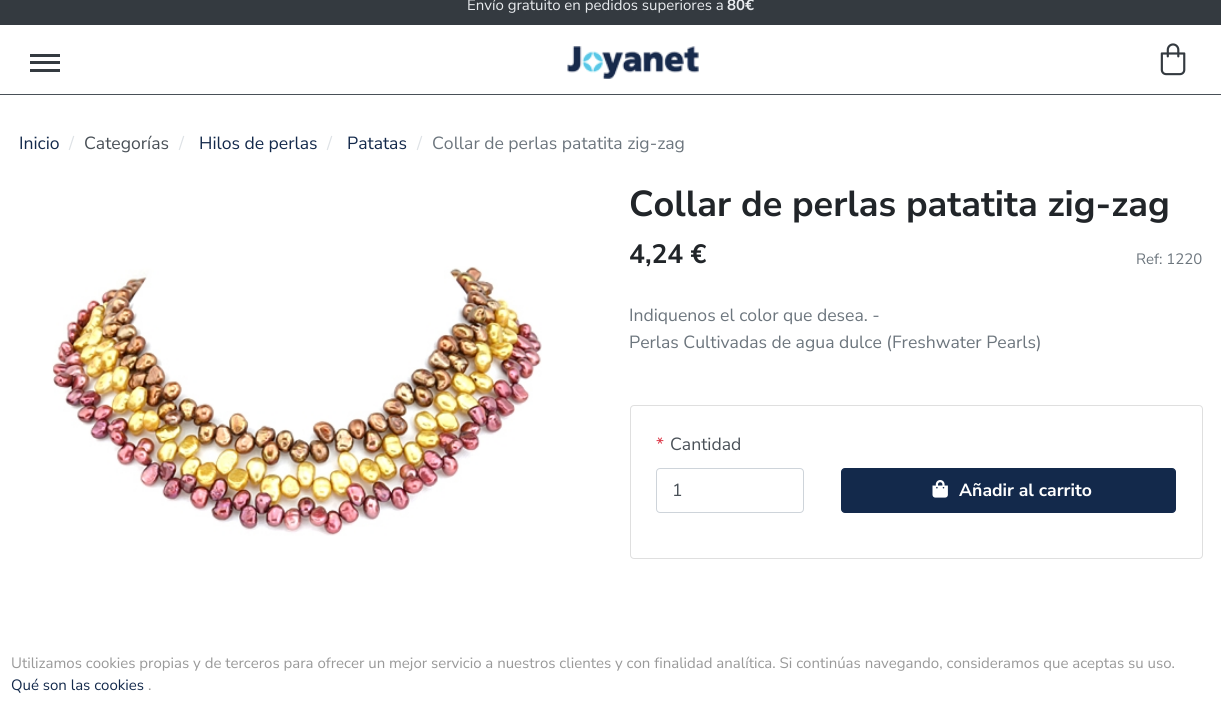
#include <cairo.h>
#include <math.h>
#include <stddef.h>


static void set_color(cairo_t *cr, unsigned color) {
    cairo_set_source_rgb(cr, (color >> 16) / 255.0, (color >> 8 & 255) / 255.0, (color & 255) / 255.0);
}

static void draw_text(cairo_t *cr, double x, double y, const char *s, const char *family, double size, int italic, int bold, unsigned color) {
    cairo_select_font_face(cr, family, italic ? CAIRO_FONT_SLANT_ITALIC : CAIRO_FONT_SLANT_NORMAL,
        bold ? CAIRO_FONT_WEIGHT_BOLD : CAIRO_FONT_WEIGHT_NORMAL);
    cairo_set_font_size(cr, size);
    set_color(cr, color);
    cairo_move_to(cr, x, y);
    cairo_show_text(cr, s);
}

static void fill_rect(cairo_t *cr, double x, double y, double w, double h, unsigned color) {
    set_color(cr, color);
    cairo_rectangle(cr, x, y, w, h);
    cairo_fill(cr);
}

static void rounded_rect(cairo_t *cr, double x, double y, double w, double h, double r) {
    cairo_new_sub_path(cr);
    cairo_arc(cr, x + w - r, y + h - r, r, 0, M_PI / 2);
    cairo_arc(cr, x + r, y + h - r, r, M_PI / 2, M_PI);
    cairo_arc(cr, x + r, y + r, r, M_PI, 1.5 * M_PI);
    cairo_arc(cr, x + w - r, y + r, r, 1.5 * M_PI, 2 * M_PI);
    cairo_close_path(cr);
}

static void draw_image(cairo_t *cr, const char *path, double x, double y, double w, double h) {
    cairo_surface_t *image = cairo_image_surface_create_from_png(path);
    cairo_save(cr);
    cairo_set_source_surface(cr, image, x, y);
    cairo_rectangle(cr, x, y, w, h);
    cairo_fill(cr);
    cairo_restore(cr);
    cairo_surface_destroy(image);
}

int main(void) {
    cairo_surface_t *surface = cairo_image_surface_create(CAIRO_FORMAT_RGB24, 1221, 706);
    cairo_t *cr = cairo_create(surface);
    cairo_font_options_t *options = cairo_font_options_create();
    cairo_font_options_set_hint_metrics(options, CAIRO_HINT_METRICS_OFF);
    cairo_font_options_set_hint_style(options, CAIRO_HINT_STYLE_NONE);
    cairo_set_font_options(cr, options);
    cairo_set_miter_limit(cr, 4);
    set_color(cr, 0xFFFFFF);
    cairo_paint(cr);
    fill_rect(cr, 0, 0, 1221, 25, 0x343A40);
    draw_text(cr, 467, 10, "Envío gratuito en pedidos superiores a", "Nunito Sans", 15, 0, 0, 0xE9ECEF);
    draw_text(cr, 727, 10, "80€", "Nunito Sans", 15, 0, 1, 0xE9ECEF);
    fill_rect(cr, 0, 94, 1221, 1, 0x495057);
    fill_rect(cr, 30, 54, 30, 3, 0x343A40);
    fill_rect(cr, 30, 61, 30, 3, 0x343A40);
    fill_rect(cr, 30, 69, 30, 3, 0x343A40);
    draw_image(cr, "assets/img1.png", 567, 46, 132, 33);
    draw_image(cr, "assets/img2.png", 1160, 43, 26, 33);
    draw_text(cr, 19, 149, "Inicio", "Nunito Sans", 17.6, 0, 0, 0x13294B);
    draw_text(cr, 69, 149, "/", "Nunito Sans", 17.6, 0, 0, 0xDEE2E6);
    draw_text(cr, 84, 149, "Categorías", "Nunito Sans", 17.6, 0, 0, 0x495057);
    draw_text(cr, 179, 149, "/", "Nunito Sans", 17.6, 0, 0, 0xDEE2E6);
    draw_text(cr, 199, 149, "Hilos de perlas", "Nunito Sans", 17.6, 0, 0, 0x13294B);
    draw_text(cr, 327, 149, "/", "Nunito Sans", 17.6, 0, 0, 0xDEE2E6);
    draw_text(cr, 347, 149, "Patatas", "Nunito Sans", 17.6, 0, 0, 0x13294B);
    draw_text(cr, 417, 149, "/", "Nunito Sans", 17.6, 0, 0, 0xDEE2E6);
    draw_text(cr, 432, 149, "Collar de perlas patatita zig-zag", "Nunito Sans", 17.6, 0, 0, 0x6C757D);
    draw_image(cr, "assets/img3.png", 52, 266, 490, 270);
    draw_text(cr, 629, 216, "Collar de perlas patatita zig-zag", "Nunito Sans", 36.1, 0, 1, 0x212529);
    draw_text(cr, 629, 263, "4,24 €", "Nunito Sans", 26.5, 0, 1, 0x212529);
    draw_text(cr, 1136, 264, "Ref: 1220", "Nunito Sans", 15, 0, 0, 0x6C757D);
    draw_text(cr, 629, 321, "Indiquenos el color que desea. -", "Nunito Sans", 17.6, 0, 0, 0x6C757D);
    draw_text(cr, 629, 348, "Perlas Cultivadas de agua dulce (Freshwater Pearls)", "Nunito Sans", 17.6, 0, 0, 0x6C757D);
    rounded_rect(cr, 630.5, 405.5, 572, 153, 3.5);
    set_color(cr, 0xDFDFDF);
    cairo_set_line_width(cr, 1);
    cairo_stroke(cr);
    draw_text(cr, 656, 450, "*", "Nunito Sans", 17.6, 0, 0, 0xDC3545);
    draw_text(cr, 670, 450, "Cantidad", "Nunito Sans", 17.6, 0, 0, 0x495057);
    rounded_rect(cr, 656.5, 468.5, 147, 44, 3.5);
    set_color(cr, 0xCED4DA);
    cairo_stroke(cr);
    draw_text(cr, 672, 496, "1", "Nunito Sans", 17.6, 0, 0, 0x495057);
    set_color(cr, 0x13294B);
    rounded_rect(cr, 841.5, 468.5, 334, 44, 3.5);
    cairo_fill_preserve(cr);
    cairo_stroke(cr);
    draw_image(cr, "assets/img4.png", 932, 480, 16, 18);
    draw_text(cr, 959, 496, "Añadir al carrito", "Nunito Sans", 17.6, 0, 1, 0xFFFFFF);
    draw_text(cr, 11, 668, "Utilizamos cookies propias y de terceros para ofrecer un mejor servicio a nuestros clientes y con finalidad analítica. Si continúas navegando, consideramos que aceptas su uso.", "Nunito Sans", 15, 0, 0, 0x999999);
    draw_text(cr, 11, 690, "Qué son las cookies", "Nunito Sans", 15, 0, 0, 0x13294B);
    draw_text(cr, 148, 690, ".", "Nunito Sans", 15, 0, 0, 0x999999);
    cairo_surface_write_to_png(surface, "output.png");
    cairo_font_options_destroy(options);
    cairo_destroy(cr);
    cairo_surface_destroy(surface);
    return 0;
}
